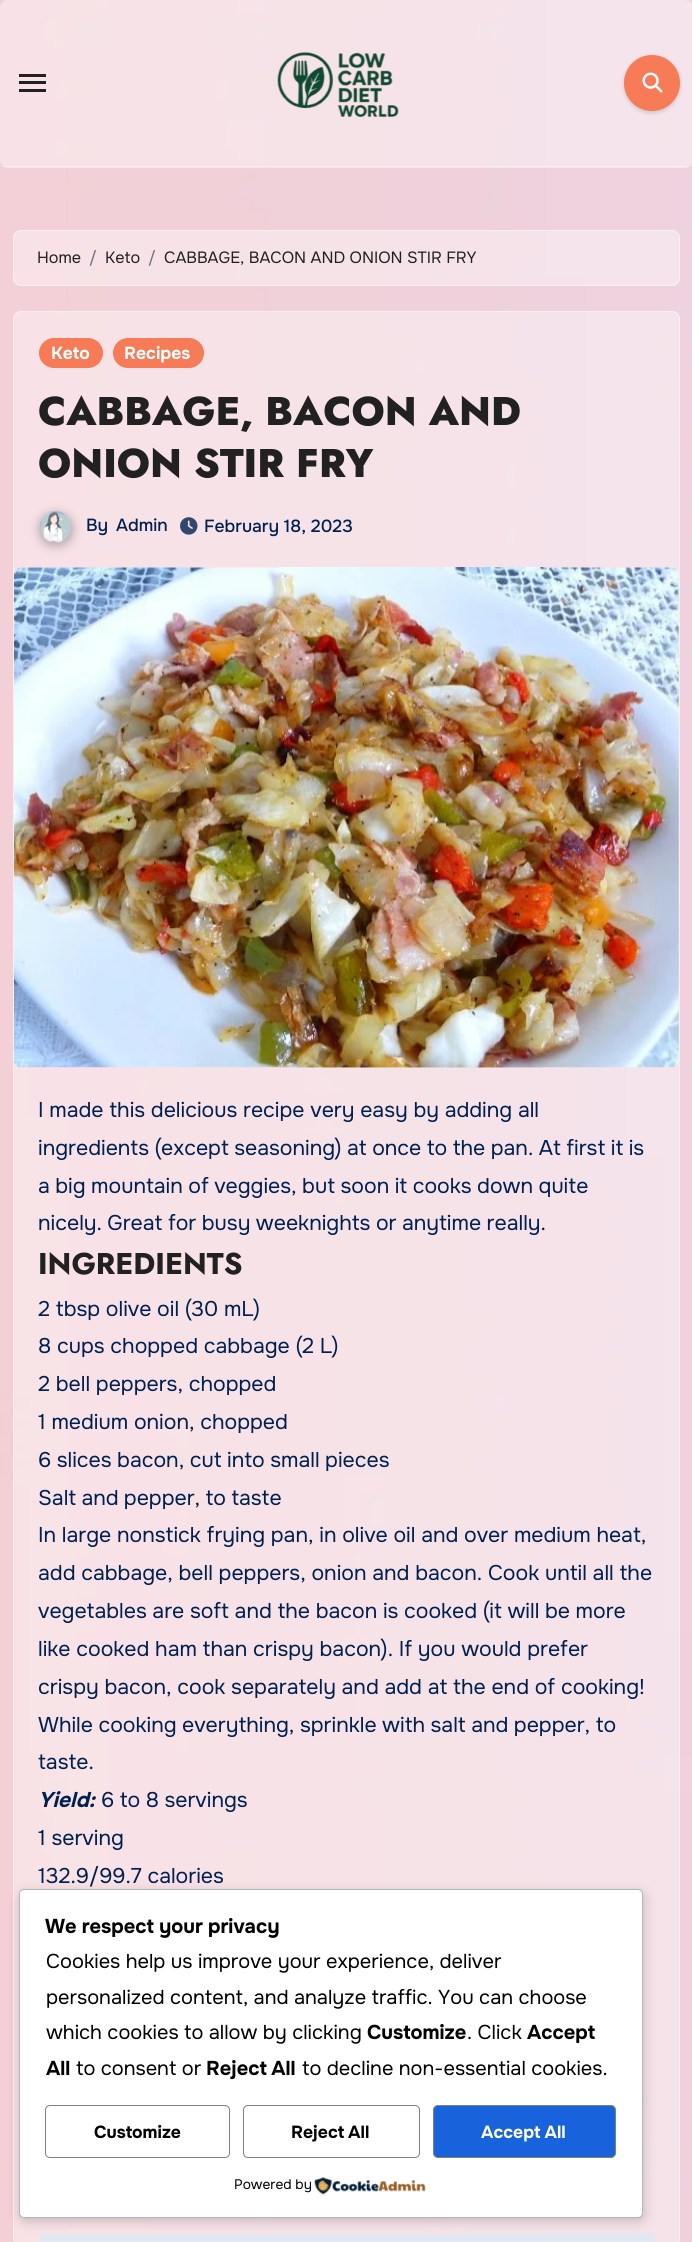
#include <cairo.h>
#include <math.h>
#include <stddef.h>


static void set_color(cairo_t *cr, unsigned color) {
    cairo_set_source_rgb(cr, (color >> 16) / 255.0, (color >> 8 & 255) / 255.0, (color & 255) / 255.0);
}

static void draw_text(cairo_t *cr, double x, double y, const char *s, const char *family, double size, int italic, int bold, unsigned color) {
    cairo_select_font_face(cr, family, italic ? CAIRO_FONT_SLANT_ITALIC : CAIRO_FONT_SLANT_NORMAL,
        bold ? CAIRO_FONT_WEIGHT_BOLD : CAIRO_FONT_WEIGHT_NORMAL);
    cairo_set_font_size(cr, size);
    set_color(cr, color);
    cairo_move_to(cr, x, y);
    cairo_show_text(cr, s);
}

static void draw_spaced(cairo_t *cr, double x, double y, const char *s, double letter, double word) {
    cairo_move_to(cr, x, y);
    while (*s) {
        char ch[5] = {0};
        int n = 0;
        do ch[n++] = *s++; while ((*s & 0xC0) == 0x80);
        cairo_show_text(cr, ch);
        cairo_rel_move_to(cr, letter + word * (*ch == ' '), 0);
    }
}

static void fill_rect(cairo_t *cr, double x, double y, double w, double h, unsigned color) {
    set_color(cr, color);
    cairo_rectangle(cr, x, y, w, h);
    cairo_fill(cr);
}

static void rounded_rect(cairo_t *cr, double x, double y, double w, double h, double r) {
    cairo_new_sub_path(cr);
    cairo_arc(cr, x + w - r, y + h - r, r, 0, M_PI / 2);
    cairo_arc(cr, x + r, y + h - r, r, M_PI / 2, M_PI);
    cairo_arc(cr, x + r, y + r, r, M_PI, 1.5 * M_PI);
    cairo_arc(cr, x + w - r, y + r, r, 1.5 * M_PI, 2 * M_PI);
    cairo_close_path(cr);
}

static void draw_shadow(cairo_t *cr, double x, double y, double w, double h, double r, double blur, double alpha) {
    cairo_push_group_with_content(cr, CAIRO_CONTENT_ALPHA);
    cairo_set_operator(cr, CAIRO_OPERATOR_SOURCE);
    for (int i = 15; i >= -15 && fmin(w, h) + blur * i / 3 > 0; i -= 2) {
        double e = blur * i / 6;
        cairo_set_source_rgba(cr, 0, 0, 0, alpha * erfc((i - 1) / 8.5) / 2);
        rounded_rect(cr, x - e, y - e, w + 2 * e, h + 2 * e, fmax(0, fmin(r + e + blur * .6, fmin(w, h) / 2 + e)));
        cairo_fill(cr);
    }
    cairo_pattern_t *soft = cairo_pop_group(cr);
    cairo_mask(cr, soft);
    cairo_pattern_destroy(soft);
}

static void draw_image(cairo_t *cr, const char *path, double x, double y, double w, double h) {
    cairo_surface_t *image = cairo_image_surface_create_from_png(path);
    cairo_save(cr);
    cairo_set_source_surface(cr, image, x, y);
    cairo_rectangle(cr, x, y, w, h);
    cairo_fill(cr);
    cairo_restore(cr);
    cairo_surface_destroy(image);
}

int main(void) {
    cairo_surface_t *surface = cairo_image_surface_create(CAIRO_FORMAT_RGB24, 692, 2242);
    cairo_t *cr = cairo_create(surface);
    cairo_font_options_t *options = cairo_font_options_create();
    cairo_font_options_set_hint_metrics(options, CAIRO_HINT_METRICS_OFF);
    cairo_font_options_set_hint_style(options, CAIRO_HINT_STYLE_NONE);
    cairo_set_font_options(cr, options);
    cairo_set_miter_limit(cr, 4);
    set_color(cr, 0xFFFFFF);
    cairo_paint(cr);
    draw_image(cr, "assets/img1.png", 0, 0, 692, 2242);
    cairo_set_source_rgba(cr, 1, 1, 1, 0.4);
    rounded_rect(cr, 0, 0, 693, 168, 8);
    cairo_fill(cr);
    cairo_rectangle(cr, 4, 166, 685, 1);
    cairo_fill(cr);
    fill_rect(cr, 19, 74, 27, 3, 0x212121);
    fill_rect(cr, 19, 81, 27, 3, 0x212121);
    fill_rect(cr, 19, 89, 27, 3, 0x212121);
    draw_image(cr, "assets/img2.png", 277, 52, 122, 65);
    set_color(cr, 0x000000);
    draw_shadow(cr, 624, 56, 56, 57, 28, 2, 0.15);
    set_color(cr, 0xF67B56);
    cairo_arc(cr, 652, 83, 28, 0, 2 * M_PI);
    cairo_fill(cr);
    draw_image(cr, "assets/img3.png", 642, 72, 21, 21);
    cairo_set_source_rgba(cr, 1, 1, 1, 0.4);
    rounded_rect(cr, 13, 230, 667, 56, 8);
    cairo_fill(cr);
    rounded_rect(cr, 13.5, 230.5, 666, 55, 7.5);
    cairo_set_line_width(cr, 1);
    cairo_stroke(cr);
    draw_text(cr, 37, 263, "Home", "Onest", 16.25, 0, 0, 0x212121);
    draw_text(cr, 89, 263, "/", "Onest", 16.25, 0, 0, 0x6C757D);
    draw_text(cr, 105, 263, "Keto", "Onest", 16.25, 0, 0, 0x212121);
    draw_text(cr, 148, 263, "/", "Onest", 16.25, 0, 0, 0x6C757D);
    draw_text(cr, 164, 263, "CABBAGE, BACON AND ONION STIR FRY", "Onest", 16.25, 0, 0, 0x212121);
    cairo_set_source_rgba(cr, 1, 1, 1, 0.4);
    rounded_rect(cr, 13, 311, 667, 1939, 8);
    cairo_fill(cr);
    rounded_rect(cr, 13.5, 311.5, 666, 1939, 7.5);
    cairo_stroke(cr);
    set_color(cr, 0xF67B56);
    rounded_rect(cr, 39, 338, 64, 30, 15);
    cairo_fill(cr);
    draw_text(cr, 51, 359, "Keto", "Onest", 17.5, 0, 1, 0xFFFFFF);
    set_color(cr, 0xF67B56);
    rounded_rect(cr, 113, 338, 91, 30, 15);
    cairo_fill(cr);
    draw_text(cr, 124, 359, "Recipes", "Onest", 17.5, 0, 1, 0xFFFFFF);
    draw_text(cr, 38, 425, "CABBAGE, BACON AND", "Jost ExtraBold", 40, 0, 0, 0x212121);
    draw_text(cr, 38, 477, "ONION STIR FRY", "Jost ExtraBold", 40, 0, 0, 0x212121);
    set_color(cr, 0x212121);
    draw_shadow(cr, 39, 513, 34, 33, 16.5, 5, 0.3);
    draw_image(cr, "assets/img4.png", 40, 511, 31, 32);
    draw_text(cr, 86, 531, "By", "Onest Medium", 17.5, 0, 0, 0x002050);
    draw_text(cr, 116, 531, "Admin", "Onest Medium", 17.5, 0, 0, 0x002050);
    draw_image(cr, "assets/img5.png", 180, 517, 18, 18);
    draw_text(cr, 204, 532, "February 18, 2023", "Onest Medium", 17.5, 0, 0, 0x002050);
    draw_image(cr, "assets/img6.png", 14, 567, 665, 501);
    draw_text(cr, 38, 1117, "I made this delicious recipe very easy by adding all", "Onest", 21.25, 0, 0, 0x002050);
    draw_spaced(cr, 38, 1155, "ingredients (except seasoning) at once to the pan. At first it is", 0, -0.3);
    draw_spaced(cr, 38, 1193, "a big mountain of veggies, but soon it cooks down quite", 0, -0.25);
    draw_spaced(cr, 38, 1230, "nicely. Great for busy weeknights or anytime really.", 0, -0.25);
    draw_text(cr, 38, 1274, "INGREDIENTS", "Jost", 30, 0, 1, 0x212121);
    draw_text(cr, 38, 1316, "2 tbsp olive oil (30 mL)", "Onest", 21.25, 0, 0, 0x002050);
    draw_text(cr, 38, 1353, "8 cups chopped cabbage (2 L)", "Onest", 21.25, 0, 0, 0x002050);
    draw_text(cr, 38, 1391, "2 bell peppers, chopped", "Onest", 21.25, 0, 0, 0x002050);
    draw_text(cr, 38, 1429, "1 medium onion, chopped", "Onest", 21.25, 0, 0, 0x002050);
    draw_spaced(cr, 38, 1467, "6 slices bacon, cut into small pieces", 0, -0.25);
    draw_spaced(cr, 38, 1505, "Salt and pepper, to taste", 0, -0.5);
    draw_text(cr, 38, 1542, "In large nonstick frying pan, in olive oil and over medium heat,", "Onest", 21.25, 0, 0, 0x002050);
    draw_text(cr, 38, 1580, "add cabbage, bell peppers, onion and bacon. Cook until all the", "Onest", 21.25, 0, 0, 0x002050);
    draw_spaced(cr, 38, 1618, "vegetables are soft and the bacon is cooked (it will be more", 0, -0.1);
    draw_text(cr, 38, 1656, "like cooked ham than crispy bacon). If you would prefer", "Onest", 21.25, 0, 0, 0x002050);
    draw_text(cr, 38, 1694, "crispy bacon, cook separately and add at the end of cooking!", "Onest", 21.25, 0, 0, 0x002050);
    draw_spaced(cr, 38, 1732, "While cooking everything, sprinkle with salt and pepper, to", 0, -0.25);
    draw_text(cr, 38, 1769, "taste.", "Onest", 21.25, 0, 0, 0x002050);
    draw_text(cr, 38, 1807, "Yield:", "Onest", 21.25, 1, 1, 0x002050);
    cairo_select_font_face(cr, "Onest", CAIRO_FONT_SLANT_NORMAL, CAIRO_FONT_WEIGHT_NORMAL);
    draw_spaced(cr, 101, 1807, "6 to 8 servings", 0, -0.25);
    draw_text(cr, 38, 1845, "1 serving", "Onest", 21.25, 0, 0, 0x002050);
    draw_text(cr, 38, 1883, "132.9/99.7 calories", "Onest", 21.25, 0, 0, 0x002050);
    fill_rect(cr, 643, 2096, 11, 1, 0xE2E8F0);
    fill_rect(cr, 39, 2234, 615, 8, 0xE2E8F0);
    set_color(cr, 0x000000);
    draw_shadow(cr, 20, 1893, 624, 328, 5, 6, 0.2);
    set_color(cr, 0xFFFFFF);
    rounded_rect(cr, 19.5, 1889.5, 623, 328, 4.5);
    cairo_fill_preserve(cr);
    set_color(cr, 0xABB8C3);
    cairo_stroke(cr);
    cairo_select_font_face(cr, "Onest", CAIRO_FONT_SLANT_NORMAL, CAIRO_FONT_WEIGHT_BOLD);
    cairo_set_font_size(cr, 20);
    set_color(cr, 0x000000);
    draw_spaced(cr, 45, 1933, "We respect your privacy", 0, -0.5);
    draw_text(cr, 46, 1968, "Cookies help us improve your experience, deliver", "Onest", 20, 0, 0, 0x000000);
    draw_text(cr, 46, 2004, "personalized content, and analyze traffic. You can choose", "Onest", 20, 0, 0, 0x000000);
    draw_text(cr, 46, 2039, "which cookies to allow by clicking", "Onest", 20, 0, 0, 0x000000);
    draw_text(cr, 367, 2039, "Customize", "Onest", 20, 0, 1, 0x000000);
    draw_text(cr, 467, 2039, ". Click", "Onest", 20, 0, 0, 0x000000);
    draw_text(cr, 527, 2039, "Accept", "Onest", 20, 0, 1, 0x000000);
    draw_text(cr, 46, 2075, "All", "Onest", 20, 0, 1, 0x000000);
    draw_text(cr, 76, 2075, "to consent or", "Onest", 20, 0, 0, 0x000000);
    cairo_select_font_face(cr, "Onest", CAIRO_FONT_SLANT_NORMAL, CAIRO_FONT_WEIGHT_BOLD);
    draw_spaced(cr, 206, 2075, "Reject All", 0, -1);
    draw_text(cr, 302, 2075, "to decline non-essential cookies.", "Onest", 20, 0, 0, 0x000000);
    rounded_rect(cr, 45.5, 2105.5, 184, 52, 4.5);
    set_color(cr, 0x808080);
    cairo_stroke(cr);
    draw_text(cr, 94, 2138, "Customize", "Onest", 17.5, 0, 1, 0x000000);
    rounded_rect(cr, 243.5, 2105.5, 176, 52, 4.5);
    set_color(cr, 0x808080);
    cairo_stroke(cr);
    set_color(cr, 0x000000);
    draw_spaced(cr, 291, 2138, "Reject All", 0, -1);
    set_color(cr, 0x1863DC);
    rounded_rect(cr, 433.5, 2105.5, 182, 52, 4.5);
    cairo_fill_preserve(cr);
    set_color(cr, 0x808080);
    cairo_stroke(cr);
    set_color(cr, 0xFFFFFF);
    draw_spaced(cr, 481, 2138, "Accept All", 0, -1);
    draw_text(cr, 234, 2189, "Powered by", "Onest", 13.75, 0, 0, 0x000000);
    draw_image(cr, "assets/img7.png", 314, 2177, 112, 18);
    cairo_surface_write_to_png(surface, "output.png");
    cairo_font_options_destroy(options);
    cairo_destroy(cr);
    cairo_surface_destroy(surface);
    return 0;
}
